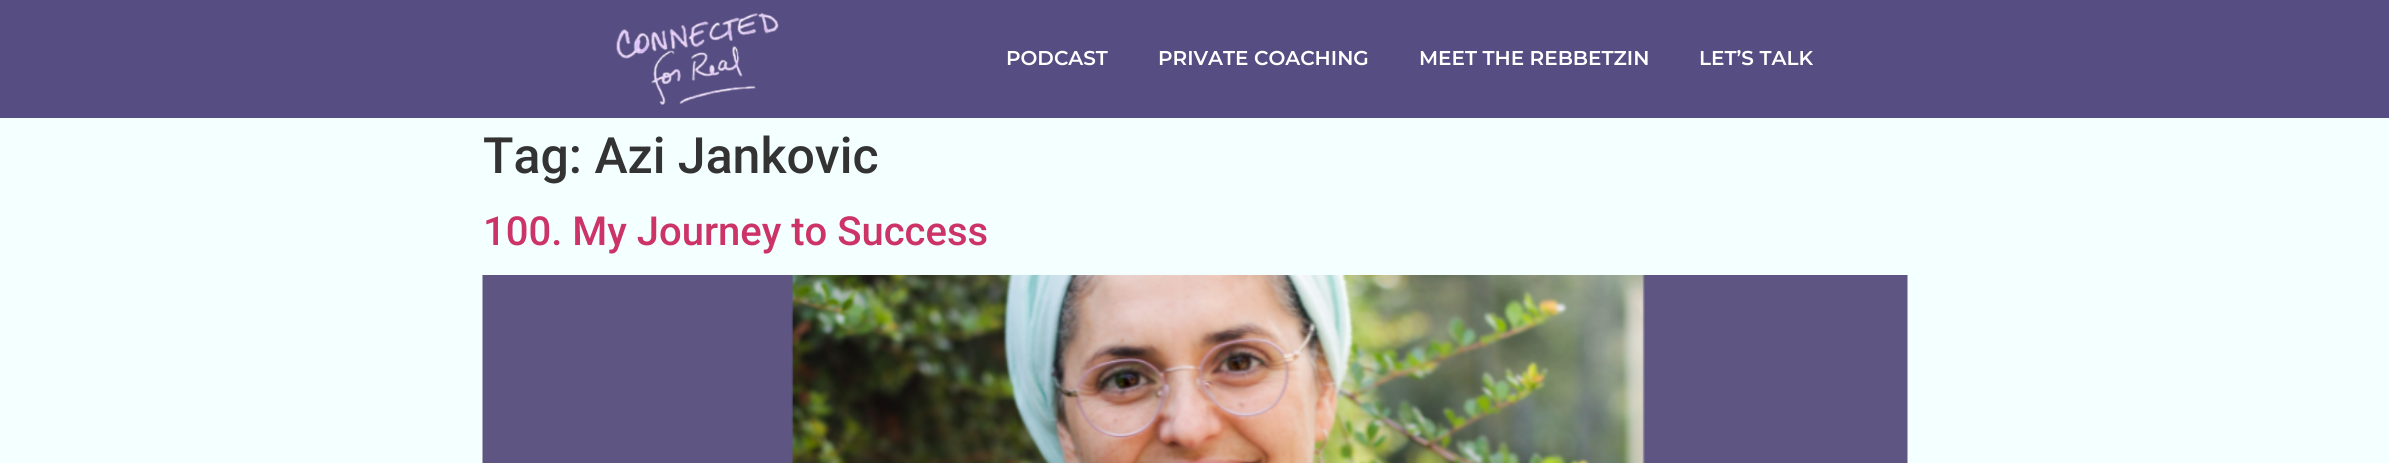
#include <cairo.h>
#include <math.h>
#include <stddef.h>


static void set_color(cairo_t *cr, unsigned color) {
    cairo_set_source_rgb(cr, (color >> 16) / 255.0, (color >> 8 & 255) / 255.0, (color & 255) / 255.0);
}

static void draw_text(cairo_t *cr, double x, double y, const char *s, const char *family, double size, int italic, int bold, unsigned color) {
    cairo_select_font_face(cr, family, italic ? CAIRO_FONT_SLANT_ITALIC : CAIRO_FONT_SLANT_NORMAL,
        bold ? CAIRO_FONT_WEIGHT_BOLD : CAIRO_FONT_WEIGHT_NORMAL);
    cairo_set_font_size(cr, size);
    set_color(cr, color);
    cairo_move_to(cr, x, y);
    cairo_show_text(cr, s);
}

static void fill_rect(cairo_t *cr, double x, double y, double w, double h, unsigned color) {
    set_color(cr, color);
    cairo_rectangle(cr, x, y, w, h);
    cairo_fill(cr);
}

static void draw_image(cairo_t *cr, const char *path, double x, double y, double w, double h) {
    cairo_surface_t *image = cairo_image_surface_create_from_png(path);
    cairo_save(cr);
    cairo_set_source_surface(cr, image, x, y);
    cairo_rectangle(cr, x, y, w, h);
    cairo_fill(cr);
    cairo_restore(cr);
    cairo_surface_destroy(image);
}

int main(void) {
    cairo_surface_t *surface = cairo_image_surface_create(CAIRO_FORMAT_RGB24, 2389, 463);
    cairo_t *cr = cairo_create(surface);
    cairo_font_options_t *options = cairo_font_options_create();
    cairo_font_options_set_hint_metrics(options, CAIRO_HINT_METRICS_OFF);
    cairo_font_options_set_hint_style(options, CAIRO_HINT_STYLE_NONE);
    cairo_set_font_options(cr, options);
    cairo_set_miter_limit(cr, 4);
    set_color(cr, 0xF4FFFF);
    cairo_paint(cr);
    fill_rect(cr, 0, 0, 2389, 118, 0x564D82);
    draw_image(cr, "assets/img1.png", 616, 12, 163, 93);
    draw_text(cr, 1006, 65, "PODCAST", "Montserrat SemiBold", 20, 0, 0, 0xFFFFFF);
    draw_text(cr, 1158, 65, "PRIVATE COACHING", "Montserrat SemiBold", 20, 0, 0, 0xFFFFFF);
    draw_text(cr, 1419, 65, "MEET THE REBBETZIN", "Montserrat SemiBold", 20, 0, 0, 0xFFFFFF);
    draw_text(cr, 1699, 65, "LET’S TALK", "Montserrat SemiBold", 20, 0, 0, 0xFFFFFF);
    draw_text(cr, 483, 173, "Tag: Azi Jankovic", "Roboto Medium", 50, 0, 0, 0x333333);
    draw_text(cr, 483, 245, "100. My Journey to Success", "Roboto Medium", 40, 0, 0, 0xCC3366);
    draw_image(cr, "assets/img2.png", 482, 275, 1426, 188);
    cairo_surface_write_to_png(surface, "output.png");
    cairo_font_options_destroy(options);
    cairo_destroy(cr);
    cairo_surface_destroy(surface);
    return 0;
}
